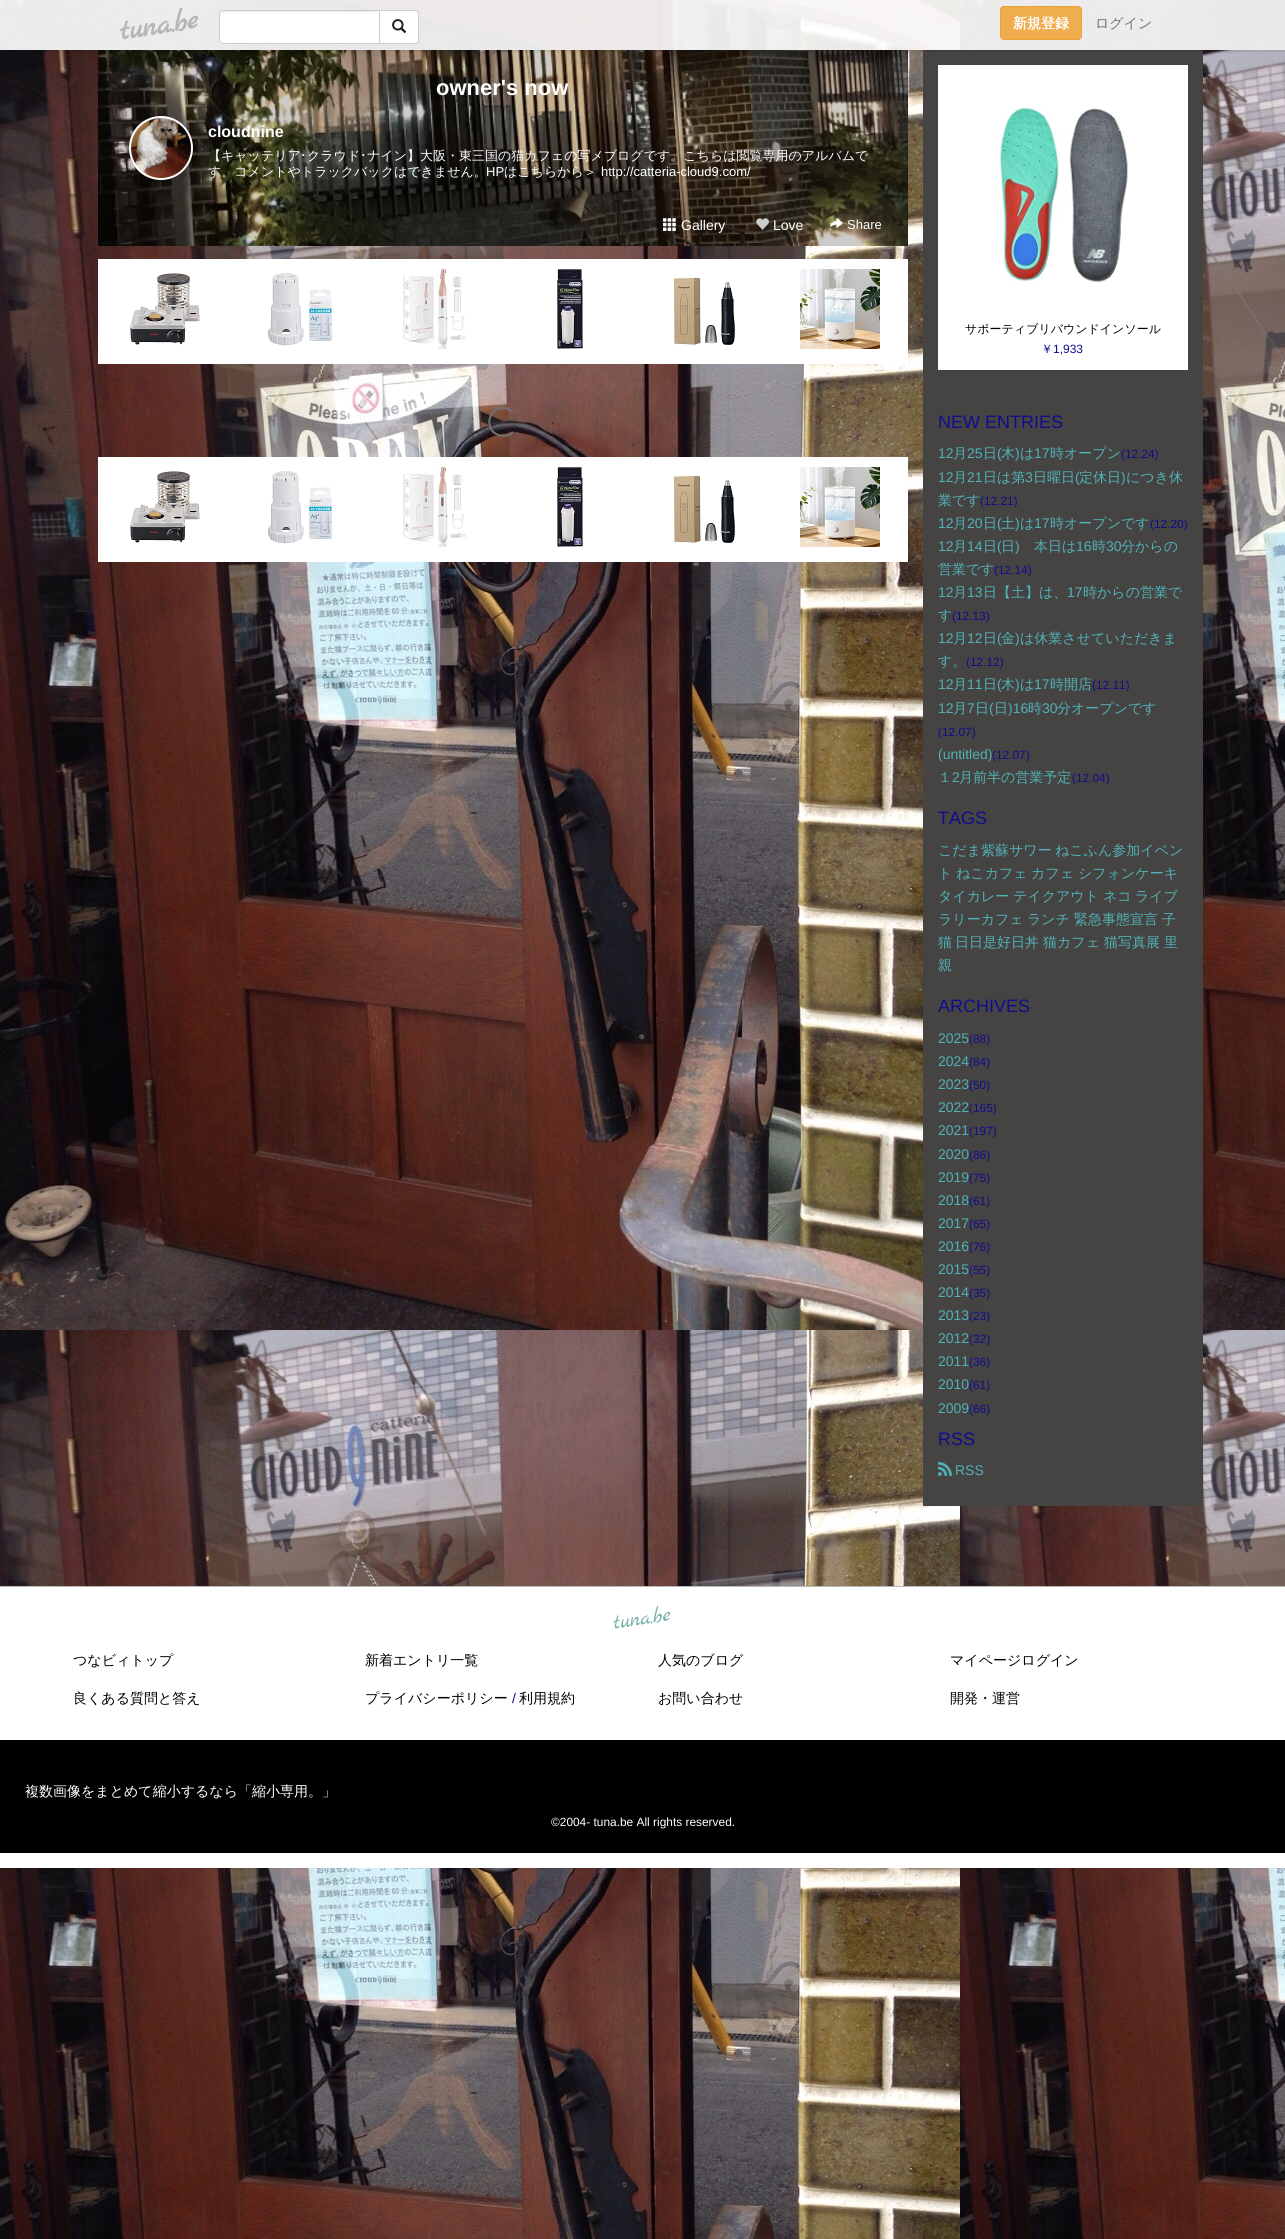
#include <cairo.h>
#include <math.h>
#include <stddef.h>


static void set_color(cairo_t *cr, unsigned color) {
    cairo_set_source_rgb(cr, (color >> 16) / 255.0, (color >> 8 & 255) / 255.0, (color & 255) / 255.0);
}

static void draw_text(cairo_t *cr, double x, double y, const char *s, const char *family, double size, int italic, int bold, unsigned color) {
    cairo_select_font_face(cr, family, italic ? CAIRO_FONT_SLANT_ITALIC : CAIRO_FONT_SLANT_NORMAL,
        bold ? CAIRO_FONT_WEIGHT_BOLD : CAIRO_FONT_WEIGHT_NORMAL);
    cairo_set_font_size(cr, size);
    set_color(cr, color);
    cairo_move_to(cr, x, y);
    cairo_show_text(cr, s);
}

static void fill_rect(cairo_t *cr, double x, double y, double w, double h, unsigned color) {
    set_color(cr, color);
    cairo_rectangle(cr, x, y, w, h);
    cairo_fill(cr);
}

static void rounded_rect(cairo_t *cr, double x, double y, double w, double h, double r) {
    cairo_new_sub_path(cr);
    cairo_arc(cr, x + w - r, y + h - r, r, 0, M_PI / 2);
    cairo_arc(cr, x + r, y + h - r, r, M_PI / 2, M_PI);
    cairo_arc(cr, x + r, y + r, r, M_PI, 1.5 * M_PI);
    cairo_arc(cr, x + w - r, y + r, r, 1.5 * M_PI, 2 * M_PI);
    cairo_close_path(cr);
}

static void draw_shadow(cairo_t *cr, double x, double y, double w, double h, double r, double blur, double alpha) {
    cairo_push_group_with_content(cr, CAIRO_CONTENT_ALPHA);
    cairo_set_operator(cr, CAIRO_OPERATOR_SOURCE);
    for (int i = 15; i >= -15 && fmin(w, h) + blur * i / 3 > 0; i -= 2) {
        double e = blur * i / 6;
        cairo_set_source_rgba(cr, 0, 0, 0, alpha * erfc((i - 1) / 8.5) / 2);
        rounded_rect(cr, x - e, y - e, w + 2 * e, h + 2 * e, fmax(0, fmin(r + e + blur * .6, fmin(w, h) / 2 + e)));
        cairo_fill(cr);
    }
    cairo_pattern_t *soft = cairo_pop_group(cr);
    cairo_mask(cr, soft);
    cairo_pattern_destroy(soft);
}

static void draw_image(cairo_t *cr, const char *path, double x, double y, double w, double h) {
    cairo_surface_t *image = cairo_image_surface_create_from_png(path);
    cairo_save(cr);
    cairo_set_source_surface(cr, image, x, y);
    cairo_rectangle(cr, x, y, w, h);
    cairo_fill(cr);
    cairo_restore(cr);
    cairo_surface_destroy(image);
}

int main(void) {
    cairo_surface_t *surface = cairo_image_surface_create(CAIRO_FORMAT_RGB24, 1285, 2239);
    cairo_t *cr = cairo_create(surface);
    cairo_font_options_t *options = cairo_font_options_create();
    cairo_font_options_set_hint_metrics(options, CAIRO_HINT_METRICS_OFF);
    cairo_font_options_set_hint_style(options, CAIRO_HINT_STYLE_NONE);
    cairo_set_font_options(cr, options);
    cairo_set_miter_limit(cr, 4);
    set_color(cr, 0xFFFFFF);
    cairo_paint(cr);
    draw_image(cr, "assets/img1.png", 0, 0, 1285, 2239);
    draw_image(cr, "assets/img3.png", 98, 50, 810, 196);
    fill_rect(cr, 923, 50, 280, 1456, 0x464343);
    cairo_save(cr);
    cairo_rectangle(cr, 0, 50, 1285, 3);
    cairo_clip(cr);
    set_color(cr, 0x000000);
    draw_shadow(cr, 0, 2, 1285, 50, 0, 1, 0.1);
    cairo_restore(cr);
    cairo_set_source_rgba(cr, 1, 1, 1, 0.9);
    cairo_rectangle(cr, 0, 0, 1285, 50);
    cairo_fill(cr);
    cairo_save(cr);
    cairo_translate(cr, 121, 40);
    cairo_rotate(cr, -9 * M_PI / 180);
    draw_text(cr, 0, 0, "tuna.be", "Marck Script", 30, 0, 1, 0xB6B6B6);
    cairo_restore(cr);
    set_color(cr, 0xFFFFFF);
    cairo_new_path(cr);
    cairo_move_to(cr, 223, 10);
    cairo_line_to(cr, 380, 10);
    cairo_line_to(cr, 380, 44);
    cairo_line_to(cr, 223, 44);
    cairo_curve_to(cr, 221, 44, 219, 42, 219, 40);
    cairo_line_to(cr, 219, 14);
    cairo_curve_to(cr, 219, 12, 221, 10, 223, 10);
    cairo_close_path(cr);
    cairo_fill(cr);
    set_color(cr, 0xECECEC);
    cairo_new_path(cr);
    cairo_move_to(cr, 223, 12);
    cairo_line_to(cr, 379, 12);
    cairo_line_to(cr, 379, 11);
    cairo_line_to(cr, 222, 11);
    cairo_curve_to(cr, 220, 11, 220, 13, 220, 15);
    cairo_curve_to(cr, 220, 13, 221, 12, 223, 12);
    cairo_close_path(cr);
    cairo_fill(cr);
    cairo_new_path(cr);
    cairo_move_to(cr, 223, 10.5);
    cairo_line_to(cr, 379.5, 10.5);
    cairo_line_to(cr, 379.5, 43.5);
    cairo_line_to(cr, 223, 43.5);
    cairo_curve_to(cr, 221, 43.5, 219.5, 42, 219.5, 40);
    cairo_line_to(cr, 219.5, 14);
    cairo_curve_to(cr, 219.5, 12, 221, 10.5, 223, 10.5);
    cairo_close_path(cr);
    set_color(cr, 0xCCCCCC);
    cairo_set_line_width(cr, 1);
    cairo_stroke(cr);
    set_color(cr, 0xFFFFFF);
    cairo_new_path(cr);
    cairo_move_to(cr, 379.5, 10.5);
    cairo_line_to(cr, 415, 10.5);
    cairo_curve_to(cr, 417, 10.5, 418.5, 12, 418.5, 14);
    cairo_line_to(cr, 418.5, 40);
    cairo_curve_to(cr, 418.5, 42, 417, 43.5, 415, 43.5);
    cairo_line_to(cr, 379.5, 43.5);
    cairo_close_path(cr);
    cairo_fill_preserve(cr);
    set_color(cr, 0xCCCCCC);
    cairo_stroke(cr);
    draw_image(cr, "assets/img2.png", 392, 19, 15, 14);
    set_color(cr, 0xF0AD4E);
    rounded_rect(cr, 1000.5, 6.5, 81, 33, 3.5);
    cairo_fill_preserve(cr);
    set_color(cr, 0xEEA236);
    cairo_stroke(cr);
    draw_text(cr, 1013, 28, "新規登録", "WenQuanYi Zen Hei", 14, 0, 1, 0xFFFFFF);
    draw_text(cr, 1095, 28, "ログイン", "WenQuanYi Zen Hei Medium", 14, 0, 0, 0x727272);
    draw_text(cr, 436, 95, "owner's now", "Liberation Sans", 22, 0, 1, 0xFFFFFF);
    draw_image(cr, "assets/img4.png", 131, 116, 60, 64);
    cairo_arc(cr, 161, 148, 31, 0, 2 * M_PI);
    cairo_set_line_width(cr, 2);
    cairo_stroke(cr);
    draw_text(cr, 208, 137, "cloudnine", "Liberation Sans", 16, 0, 1, 0xFFFFFF);
    draw_text(cr, 208, 160, "【キャッテリア", "WenQuanYi Zen Hei Medium", 13, 0, 0, 0xFFFFFF);
    draw_text(cr, 300, 160, "･", "IPAPGothic", 13, 0, 0, 0xFFFFFF);
    draw_text(cr, 307, 160, "クラウド", "WenQuanYi Zen Hei Medium", 13, 0, 0, 0xFFFFFF);
    draw_text(cr, 360, 160, "･", "IPAPGothic", 13, 0, 0, 0xFFFFFF);
    draw_text(cr, 367, 160, "ナイン】大阪・東三国の猫カフェの写メブログです。こちらは閲覧専用のアルバムで", "WenQuanYi Zen Hei Medium", 13, 0, 0, 0xFFFFFF);
    draw_text(cr, 208, 176, "す。コメントやトラックバックはできません。", "WenQuanYi Zen Hei Medium", 13, 0, 0, 0xFFFFFF);
    draw_text(cr, 486, 176, "HP", "Liberation Sans", 13, 0, 0, 0xFFFFFF);
    draw_text(cr, 504, 176, "はこちらから＞", "WenQuanYi Zen Hei Medium", 13, 0, 0, 0xFFFFFF);
    draw_text(cr, 601, 176, "http://catteria-cloud9.com/", "Liberation Sans", 13, 0, 0, 0xFFFFFF);
    draw_image(cr, "assets/img5.png", 663, 218, 13, 13);
    draw_text(cr, 681, 230, "Gallery", "Liberation Sans", 14, 0, 0, 0xFFFFFF);
    draw_image(cr, "assets/img6.png", 756, 218, 13, 12);
    draw_text(cr, 773, 230, "Love", "Liberation Sans", 14, 0, 0, 0xFFFFFF);
    draw_image(cr, "assets/img7.png", 830, 218, 13, 10);
    draw_text(cr, 847, 229, "Share", "Liberation Sans", 13, 0, 0, 0xFFFFFF);
    fill_rect(cr, 98, 259, 810, 105, 0xFFFFFF);
    draw_image(cr, "assets/img8.png", 130, 273, 70, 72);
    draw_image(cr, "assets/img9.png", 268, 273, 65, 73);
    draw_image(cr, "assets/img10.png", 403, 269, 64, 80);
    draw_image(cr, "assets/img11.png", 557, 269, 26, 80);
    draw_image(cr, "assets/img12.png", 673, 277, 62, 69);
    draw_image(cr, "assets/img13.png", 800, 269, 80, 80);
    cairo_new_path(cr);
    cairo_move_to(cr, 513, 432);
    cairo_curve_to(cr, 509.5, 435, 505, 436.5, 500.5, 435.5);
    cairo_curve_to(cr, 484, 432.5, 486.5, 408, 503, 408);
    cairo_curve_to(cr, 506.5, 408, 510.5, 409.5, 513, 412);
    set_color(cr, 0x727272);
    cairo_stroke(cr);
    fill_rect(cr, 98, 457, 810, 105, 0xFFFFFF);
    draw_image(cr, "assets/img8.png", 130, 471, 70, 72);
    draw_image(cr, "assets/img9.png", 268, 471, 65, 73);
    draw_image(cr, "assets/img10.png", 403, 467, 64, 80);
    draw_image(cr, "assets/img11.png", 557, 467, 26, 80);
    draw_image(cr, "assets/img12.png", 673, 475, 62, 69);
    draw_image(cr, "assets/img13.png", 800, 467, 80, 80);
    fill_rect(cr, 938, 65, 250, 305, 0xFFFFFF);
    draw_image(cr, "assets/img14.png", 998, 106, 130, 176);
    draw_text(cr, 965, 333, "サポーティブリバウンドインソール", "WenQuanYi Zen Hei Medium", 12, 0, 0, 0x000000);
    draw_text(cr, 1041, 353, "￥", "WenQuanYi Zen Hei Medium", 12, 0, 0, 0x0E0D8E);
    draw_text(cr, 1053, 353, "1,933", "Liberation Sans", 12, 0, 0, 0x0E0D8E);
    draw_text(cr, 938, 428, "NEW ENTRIES", "Liberation Sans", 18, 0, 0, 0x0E0D8E);
    draw_text(cr, 938, 458, "12", "Liberation Sans", 14, 0, 0, 0x50B2B6);
    draw_text(cr, 953, 458, "月", "WenQuanYi Zen Hei Medium", 14, 0, 0, 0x50B2B6);
    draw_text(cr, 967, 458, "25", "Liberation Sans", 14, 0, 0, 0x50B2B6);
    draw_text(cr, 983, 458, "日", "WenQuanYi Zen Hei Medium", 14, 0, 0, 0x50B2B6);
    draw_text(cr, 997, 458, "(", "Liberation Sans", 14, 0, 0, 0x50B2B6);
    draw_text(cr, 1001, 458, "木", "WenQuanYi Zen Hei Medium", 14, 0, 0, 0x50B2B6);
    draw_text(cr, 1015, 458, ")", "Liberation Sans", 14, 0, 0, 0x50B2B6);
    draw_text(cr, 1020, 458, "は", "WenQuanYi Zen Hei Medium", 14, 0, 0, 0x50B2B6);
    draw_text(cr, 1034, 458, "17", "Liberation Sans", 14, 0, 0, 0x50B2B6);
    draw_text(cr, 1050, 458, "時オープン", "WenQuanYi Zen Hei Medium", 14, 0, 0, 0x50B2B6);
    draw_text(cr, 1121, 458, "(12.24)", "Liberation Sans", 11.9, 0, 0, 0x0E0D8E);
    draw_text(cr, 938, 482, "12", "Liberation Sans", 14, 0, 0, 0x50B2B6);
    draw_text(cr, 953, 482, "月", "WenQuanYi Zen Hei Medium", 14, 0, 0, 0x50B2B6);
    draw_text(cr, 967, 482, "21", "Liberation Sans", 14, 0, 0, 0x50B2B6);
    draw_text(cr, 983, 482, "日は第", "WenQuanYi Zen Hei Medium", 14, 0, 0, 0x50B2B6);
    draw_text(cr, 1025, 482, "3", "Liberation Sans", 14, 0, 0, 0x50B2B6);
    draw_text(cr, 1033, 482, "日曜日", "WenQuanYi Zen Hei Medium", 14, 0, 0, 0x50B2B6);
    draw_text(cr, 1075, 482, "(", "Liberation Sans", 14, 0, 0, 0x50B2B6);
    draw_text(cr, 1079, 482, "定休日", "WenQuanYi Zen Hei Medium", 14, 0, 0, 0x50B2B6);
    draw_text(cr, 1121, 482, ")", "Liberation Sans", 14, 0, 0, 0x50B2B6);
    draw_text(cr, 1126, 482, "につき休", "WenQuanYi Zen Hei Medium", 14, 0, 0, 0x50B2B6);
    draw_text(cr, 938, 505, "業です", "WenQuanYi Zen Hei Medium", 14, 0, 0, 0x50B2B6);
    draw_text(cr, 980, 505, "(12.21)", "Liberation Sans", 11.9, 0, 0, 0x0E0D8E);
    draw_text(cr, 938, 528, "12", "Liberation Sans", 14, 0, 0, 0x50B2B6);
    draw_text(cr, 953, 528, "月", "WenQuanYi Zen Hei Medium", 14, 0, 0, 0x50B2B6);
    draw_text(cr, 967, 528, "20", "Liberation Sans", 14, 0, 0, 0x50B2B6);
    draw_text(cr, 983, 528, "日", "WenQuanYi Zen Hei Medium", 14, 0, 0, 0x50B2B6);
    draw_text(cr, 997, 528, "(", "Liberation Sans", 14, 0, 0, 0x50B2B6);
    draw_text(cr, 1001, 528, "土", "WenQuanYi Zen Hei Medium", 14, 0, 0, 0x50B2B6);
    draw_text(cr, 1015, 528, ")", "Liberation Sans", 14, 0, 0, 0x50B2B6);
    draw_text(cr, 1020, 528, "は", "WenQuanYi Zen Hei Medium", 14, 0, 0, 0x50B2B6);
    draw_text(cr, 1034, 528, "17", "Liberation Sans", 14, 0, 0, 0x50B2B6);
    draw_text(cr, 1050, 528, "時オープンです", "WenQuanYi Zen Hei Medium", 14, 0, 0, 0x50B2B6);
    draw_text(cr, 1150, 528, "(12.20)", "Liberation Sans", 11.9, 0, 0, 0x0E0D8E);
    draw_text(cr, 938, 551, "12", "Liberation Sans", 14, 0, 0, 0x50B2B6);
    draw_text(cr, 953, 551, "月", "WenQuanYi Zen Hei Medium", 14, 0, 0, 0x50B2B6);
    draw_text(cr, 967, 551, "14", "Liberation Sans", 14, 0, 0, 0x50B2B6);
    draw_text(cr, 983, 551, "日", "WenQuanYi Zen Hei Medium", 14, 0, 0, 0x50B2B6);
    draw_text(cr, 997, 551, "(", "Liberation Sans", 14, 0, 0, 0x50B2B6);
    draw_text(cr, 1001, 551, "日", "WenQuanYi Zen Hei Medium", 14, 0, 0, 0x50B2B6);
    draw_text(cr, 1015, 551, ")", "Liberation Sans", 14, 0, 0, 0x50B2B6);
    draw_text(cr, 1034, 551, "本日は", "WenQuanYi Zen Hei Medium", 14, 0, 0, 0x50B2B6);
    draw_text(cr, 1076, 551, "16", "Liberation Sans", 14, 0, 0, 0x50B2B6);
    draw_text(cr, 1092, 551, "時", "WenQuanYi Zen Hei Medium", 14, 0, 0, 0x50B2B6);
    draw_text(cr, 1106, 551, "30", "Liberation Sans", 14, 0, 0, 0x50B2B6);
    draw_text(cr, 1121, 551, "分からの", "WenQuanYi Zen Hei Medium", 14, 0, 0, 0x50B2B6);
    draw_text(cr, 938, 574, "営業です", "WenQuanYi Zen Hei Medium", 14, 0, 0, 0x50B2B6);
    draw_text(cr, 994, 574, "(12.14)", "Liberation Sans", 11.9, 0, 0, 0x0E0D8E);
    draw_text(cr, 938, 597, "12", "Liberation Sans", 14, 0, 0, 0x50B2B6);
    draw_text(cr, 953, 597, "月", "WenQuanYi Zen Hei Medium", 14, 0, 0, 0x50B2B6);
    draw_text(cr, 967, 597, "13", "Liberation Sans", 14, 0, 0, 0x50B2B6);
    draw_text(cr, 983, 597, "日【土】は、", "WenQuanYi Zen Hei Medium", 14, 0, 0, 0x50B2B6);
    draw_text(cr, 1067, 597, "17", "Liberation Sans", 14, 0, 0, 0x50B2B6);
    draw_text(cr, 1083, 597, "時からの営業で", "WenQuanYi Zen Hei Medium", 14, 0, 0, 0x50B2B6);
    draw_text(cr, 938, 620, "す", "WenQuanYi Zen Hei Medium", 14, 0, 0, 0x50B2B6);
    draw_text(cr, 952, 620, "(12.13)", "Liberation Sans", 11.9, 0, 0, 0x0E0D8E);
    draw_text(cr, 938, 643, "12", "Liberation Sans", 14, 0, 0, 0x50B2B6);
    draw_text(cr, 953, 643, "月", "WenQuanYi Zen Hei Medium", 14, 0, 0, 0x50B2B6);
    draw_text(cr, 967, 643, "12", "Liberation Sans", 14, 0, 0, 0x50B2B6);
    draw_text(cr, 983, 643, "日", "WenQuanYi Zen Hei Medium", 14, 0, 0, 0x50B2B6);
    draw_text(cr, 997, 643, "(", "Liberation Sans", 14, 0, 0, 0x50B2B6);
    draw_text(cr, 1001, 643, "金", "WenQuanYi Zen Hei Medium", 14, 0, 0, 0x50B2B6);
    draw_text(cr, 1015, 643, ")", "Liberation Sans", 14, 0, 0, 0x50B2B6);
    draw_text(cr, 1020, 643, "は休業させていただきま", "WenQuanYi Zen Hei Medium", 14, 0, 0, 0x50B2B6);
    draw_text(cr, 938, 666, "す。", "WenQuanYi Zen Hei Medium", 14, 0, 0, 0x50B2B6);
    draw_text(cr, 966, 666, "(12.12)", "Liberation Sans", 11.9, 0, 0, 0x0E0D8E);
    draw_text(cr, 938, 689, "12", "Liberation Sans", 14, 0, 0, 0x50B2B6);
    draw_text(cr, 953, 689, "月", "WenQuanYi Zen Hei Medium", 14, 0, 0, 0x50B2B6);
    draw_text(cr, 967, 689, "11", "Liberation Sans", 14, 0, 0, 0x50B2B6);
    draw_text(cr, 983, 689, "日", "WenQuanYi Zen Hei Medium", 14, 0, 0, 0x50B2B6);
    draw_text(cr, 997, 689, "(", "Liberation Sans", 14, 0, 0, 0x50B2B6);
    draw_text(cr, 1001, 689, "木", "WenQuanYi Zen Hei Medium", 14, 0, 0, 0x50B2B6);
    draw_text(cr, 1015, 689, ")", "Liberation Sans", 14, 0, 0, 0x50B2B6);
    draw_text(cr, 1020, 689, "は", "WenQuanYi Zen Hei Medium", 14, 0, 0, 0x50B2B6);
    draw_text(cr, 1034, 689, "17", "Liberation Sans", 14, 0, 0, 0x50B2B6);
    draw_text(cr, 1050, 689, "時開店", "WenQuanYi Zen Hei Medium", 14, 0, 0, 0x50B2B6);
    draw_text(cr, 1092, 689, "(12.11)", "Liberation Sans", 11.9, 0, 0, 0x0E0D8E);
    draw_text(cr, 938, 713, "12", "Liberation Sans", 14, 0, 0, 0x50B2B6);
    draw_text(cr, 953, 713, "月", "WenQuanYi Zen Hei Medium", 14, 0, 0, 0x50B2B6);
    draw_text(cr, 967, 713, "7", "Liberation Sans", 14, 0, 0, 0x50B2B6);
    draw_text(cr, 975, 713, "日", "WenQuanYi Zen Hei Medium", 14, 0, 0, 0x50B2B6);
    draw_text(cr, 989, 713, "(", "Liberation Sans", 14, 0, 0, 0x50B2B6);
    draw_text(cr, 994, 713, "日", "WenQuanYi Zen Hei Medium", 14, 0, 0, 0x50B2B6);
    draw_text(cr, 1008, 713, ")16", "Liberation Sans", 14, 0, 0, 0x50B2B6);
    draw_text(cr, 1028, 713, "時", "WenQuanYi Zen Hei Medium", 14, 0, 0, 0x50B2B6);
    draw_text(cr, 1042, 713, "30", "Liberation Sans", 14, 0, 0, 0x50B2B6);
    draw_text(cr, 1057, 713, "分オープンです", "WenQuanYi Zen Hei Medium", 14, 0, 0, 0x50B2B6);
    draw_text(cr, 938, 736, "(12.07)", "Liberation Sans", 11.9, 0, 0, 0x0E0D8E);
    draw_text(cr, 938, 759, "(untitled)", "Liberation Sans", 14, 0, 0, 0x50B2B6);
    draw_text(cr, 992, 759, "(12.07)", "Liberation Sans", 11.9, 0, 0, 0x0E0D8E);
    draw_text(cr, 938, 782, "１", "WenQuanYi Zen Hei Medium", 14, 0, 0, 0x50B2B6);
    draw_text(cr, 952, 782, "2", "Liberation Sans", 14, 0, 0, 0x50B2B6);
    draw_text(cr, 959, 782, "月前半の営業予定", "WenQuanYi Zen Hei Medium", 14, 0, 0, 0x50B2B6);
    draw_text(cr, 1072, 782, "(12.04)", "Liberation Sans", 11.9, 0, 0, 0x0E0D8E);
    draw_text(cr, 938, 824, "TAGS", "Liberation Sans", 18, 0, 0, 0x0E0D8E);
    draw_text(cr, 938, 855, "こだま紫蘇サワー", "WenQuanYi Zen Hei Medium", 14, 0, 0, 0x50B2B6);
    draw_text(cr, 1055, 855, "ねこふん参加イベン", "WenQuanYi Zen Hei Medium", 14, 0, 0, 0x50B2B6);
    draw_text(cr, 938, 878, "ト", "WenQuanYi Zen Hei Medium", 14, 0, 0, 0x50B2B6);
    draw_text(cr, 956, 878, "ねこカフェ", "WenQuanYi Zen Hei Medium", 14, 0, 0, 0x50B2B6);
    draw_text(cr, 1031, 878, "カフェ", "WenQuanYi Zen Hei Medium", 14, 0, 0, 0x50B2B6);
    draw_text(cr, 1078, 878, "シフォンケーキ", "WenQuanYi Zen Hei Medium", 14, 0, 0, 0x50B2B6);
    draw_text(cr, 938, 901, "タイカレー", "WenQuanYi Zen Hei Medium", 14, 0, 0, 0x50B2B6);
    draw_text(cr, 1013, 901, "テイクアウト", "WenQuanYi Zen Hei Medium", 14, 0, 0, 0x50B2B6);
    draw_text(cr, 1103, 901, "ネコ", "WenQuanYi Zen Hei Medium", 14, 0, 0, 0x50B2B6);
    draw_text(cr, 1135, 901, "ライブ", "WenQuanYi Zen Hei Medium", 14, 0, 0, 0x50B2B6);
    draw_text(cr, 938, 924, "ラリーカフェ", "WenQuanYi Zen Hei Medium", 14, 0, 0, 0x50B2B6);
    draw_text(cr, 1027, 924, "ランチ", "WenQuanYi Zen Hei Medium", 14, 0, 0, 0x50B2B6);
    draw_text(cr, 1074, 924, "緊急事態宣言", "WenQuanYi Zen Hei Medium", 14, 0, 0, 0x50B2B6);
    draw_text(cr, 1162, 924, "子", "WenQuanYi Zen Hei Medium", 14, 0, 0, 0x50B2B6);
    draw_text(cr, 938, 947, "猫", "WenQuanYi Zen Hei Medium", 14, 0, 0, 0x50B2B6);
    draw_text(cr, 955, 947, "日日是好日丼", "WenQuanYi Zen Hei Medium", 14, 0, 0, 0x50B2B6);
    draw_text(cr, 1043, 947, "猫カフェ", "WenQuanYi Zen Hei Medium", 14, 0, 0, 0x50B2B6);
    draw_text(cr, 1104, 947, "猫写真展", "WenQuanYi Zen Hei Medium", 14, 0, 0, 0x50B2B6);
    draw_text(cr, 1164, 947, "里", "WenQuanYi Zen Hei Medium", 14, 0, 0, 0x50B2B6);
    draw_text(cr, 938, 970, "親", "WenQuanYi Zen Hei Medium", 14, 0, 0, 0x50B2B6);
    draw_text(cr, 938, 1012, "ARCHIVES", "Liberation Sans", 18, 0, 0, 0x0E0D8E);
    draw_text(cr, 938, 1043, "2025", "Liberation Sans", 14, 0, 0, 0x50B2B6);
    draw_text(cr, 969, 1043, "(88)", "Liberation Sans", 11.9, 0, 0, 0x0E0D8E);
    draw_text(cr, 938, 1066, "2024", "Liberation Sans", 14, 0, 0, 0x50B2B6);
    draw_text(cr, 969, 1066, "(84)", "Liberation Sans", 11.9, 0, 0, 0x0E0D8E);
    draw_text(cr, 938, 1089, "2023", "Liberation Sans", 14, 0, 0, 0x50B2B6);
    draw_text(cr, 969, 1089, "(50)", "Liberation Sans", 11.9, 0, 0, 0x0E0D8E);
    draw_text(cr, 938, 1112, "2022", "Liberation Sans", 14, 0, 0, 0x50B2B6);
    draw_text(cr, 969, 1112, "(165)", "Liberation Sans", 11.9, 0, 0, 0x0E0D8E);
    draw_text(cr, 938, 1135, "2021", "Liberation Sans", 14, 0, 0, 0x50B2B6);
    draw_text(cr, 969, 1135, "(197)", "Liberation Sans", 11.9, 0, 0, 0x0E0D8E);
    draw_text(cr, 938, 1159, "2020", "Liberation Sans", 14, 0, 0, 0x50B2B6);
    draw_text(cr, 969, 1159, "(86)", "Liberation Sans", 11.9, 0, 0, 0x0E0D8E);
    draw_text(cr, 938, 1182, "2019", "Liberation Sans", 14, 0, 0, 0x50B2B6);
    draw_text(cr, 969, 1182, "(75)", "Liberation Sans", 11.9, 0, 0, 0x0E0D8E);
    draw_text(cr, 938, 1205, "2018", "Liberation Sans", 14, 0, 0, 0x50B2B6);
    draw_text(cr, 969, 1205, "(61)", "Liberation Sans", 11.9, 0, 0, 0x0E0D8E);
    draw_text(cr, 938, 1228, "2017", "Liberation Sans", 14, 0, 0, 0x50B2B6);
    draw_text(cr, 969, 1228, "(65)", "Liberation Sans", 11.9, 0, 0, 0x0E0D8E);
    draw_text(cr, 938, 1251, "2016", "Liberation Sans", 14, 0, 0, 0x50B2B6);
    draw_text(cr, 969, 1251, "(76)", "Liberation Sans", 11.9, 0, 0, 0x0E0D8E);
    draw_text(cr, 938, 1274, "2015", "Liberation Sans", 14, 0, 0, 0x50B2B6);
    draw_text(cr, 969, 1274, "(55)", "Liberation Sans", 11.9, 0, 0, 0x0E0D8E);
    draw_text(cr, 938, 1297, "2014", "Liberation Sans", 14, 0, 0, 0x50B2B6);
    draw_text(cr, 969, 1297, "(35)", "Liberation Sans", 11.9, 0, 0, 0x0E0D8E);
    draw_text(cr, 938, 1320, "2013", "Liberation Sans", 14, 0, 0, 0x50B2B6);
    draw_text(cr, 969, 1320, "(23)", "Liberation Sans", 11.9, 0, 0, 0x0E0D8E);
    draw_text(cr, 938, 1343, "2012", "Liberation Sans", 14, 0, 0, 0x50B2B6);
    draw_text(cr, 969, 1343, "(32)", "Liberation Sans", 11.9, 0, 0, 0x0E0D8E);
    draw_text(cr, 938, 1366, "2011", "Liberation Sans", 14, 0, 0, 0x50B2B6);
    draw_text(cr, 969, 1366, "(36)", "Liberation Sans", 11.9, 0, 0, 0x0E0D8E);
    draw_text(cr, 938, 1389, "2010", "Liberation Sans", 14, 0, 0, 0x50B2B6);
    draw_text(cr, 969, 1389, "(61)", "Liberation Sans", 11.9, 0, 0, 0x0E0D8E);
    draw_text(cr, 938, 1413, "2009", "Liberation Sans", 14, 0, 0, 0x50B2B6);
    draw_text(cr, 969, 1413, "(66)", "Liberation Sans", 11.9, 0, 0, 0x0E0D8E);
    draw_text(cr, 938, 1445, "RSS", "Liberation Sans", 18, 0, 0, 0x0E0D8E);
    draw_image(cr, "assets/img15.png", 938, 1461, 14, 15);
    draw_text(cr, 955, 1475, "RSS", "Liberation Sans", 14, 0, 0, 0x50B2B6);
    fill_rect(cr, 0, 1587, 1285, 281, 0xFFFFFF);
    fill_rect(cr, 0, 1586, 1285, 1, 0xB6B6B6);
    cairo_save(cr);
    cairo_translate(cr, 614, 1629);
    cairo_rotate(cr, -9 * M_PI / 180);
    draw_text(cr, 0, 0, "tuna.be", "Marck Script", 22, 0, 0, 0x75B1A9);
    cairo_restore(cr);
    draw_text(cr, 73, 1665, "つなビィトップ", "WenQuanYi Zen Hei Medium", 14, 0, 0, 0x000000);
    draw_text(cr, 365, 1665, "新着エントリ一覧", "WenQuanYi Zen Hei Medium", 14, 0, 0, 0x000000);
    draw_text(cr, 658, 1665, "人気のブログ", "WenQuanYi Zen Hei Medium", 14, 0, 0, 0x000000);
    draw_text(cr, 950, 1665, "マイページログイン", "WenQuanYi Zen Hei Medium", 14, 0, 0, 0x000000);
    draw_text(cr, 73, 1703, "良くある質問と答え", "WenQuanYi Zen Hei Medium", 14, 0, 0, 0x000000);
    draw_text(cr, 365, 1703, "プライバシーポリシー", "WenQuanYi Zen Hei Medium", 14, 0, 0, 0x000000);
    draw_text(cr, 512, 1703, "/", "Liberation Sans", 14, 0, 0, 0x0E0D8E);
    draw_text(cr, 519, 1703, "利用規約", "WenQuanYi Zen Hei Medium", 14, 0, 0, 0x000000);
    draw_text(cr, 658, 1703, "お問い合わせ", "WenQuanYi Zen Hei Medium", 14, 0, 0, 0x000000);
    draw_text(cr, 950, 1703, "開発・運営", "WenQuanYi Zen Hei Medium", 14, 0, 0, 0x000000);
    fill_rect(cr, 0, 1740, 1285, 113, 0x000000);
    draw_text(cr, 25, 1796, "複数画像をまとめて縮小するなら「縮小専用。」", "WenQuanYi Zen Hei Medium", 14, 0, 0, 0xFFFFFF);
    draw_text(cr, 551, 1826, "©2004- tuna.be All rights reserved.", "Liberation Sans", 11.9, 0, 0, 0xFFFFFF);
    cairo_surface_write_to_png(surface, "output.png");
    cairo_font_options_destroy(options);
    cairo_destroy(cr);
    cairo_surface_destroy(surface);
    return 0;
}
